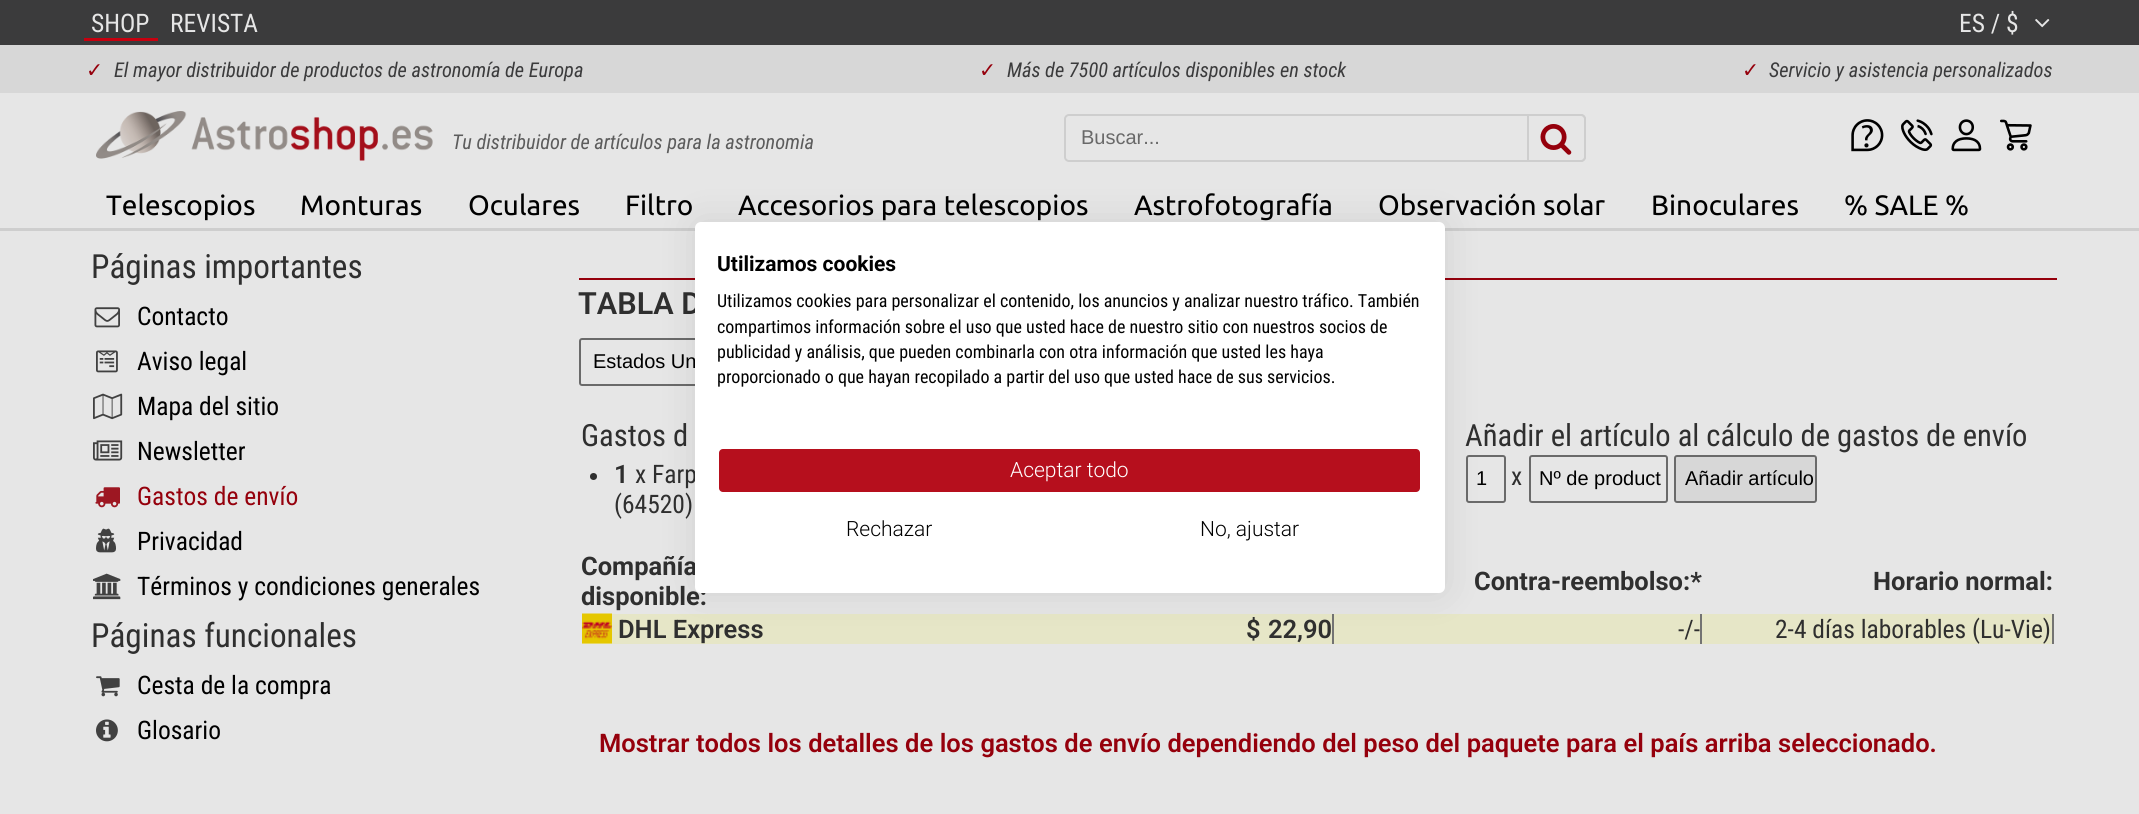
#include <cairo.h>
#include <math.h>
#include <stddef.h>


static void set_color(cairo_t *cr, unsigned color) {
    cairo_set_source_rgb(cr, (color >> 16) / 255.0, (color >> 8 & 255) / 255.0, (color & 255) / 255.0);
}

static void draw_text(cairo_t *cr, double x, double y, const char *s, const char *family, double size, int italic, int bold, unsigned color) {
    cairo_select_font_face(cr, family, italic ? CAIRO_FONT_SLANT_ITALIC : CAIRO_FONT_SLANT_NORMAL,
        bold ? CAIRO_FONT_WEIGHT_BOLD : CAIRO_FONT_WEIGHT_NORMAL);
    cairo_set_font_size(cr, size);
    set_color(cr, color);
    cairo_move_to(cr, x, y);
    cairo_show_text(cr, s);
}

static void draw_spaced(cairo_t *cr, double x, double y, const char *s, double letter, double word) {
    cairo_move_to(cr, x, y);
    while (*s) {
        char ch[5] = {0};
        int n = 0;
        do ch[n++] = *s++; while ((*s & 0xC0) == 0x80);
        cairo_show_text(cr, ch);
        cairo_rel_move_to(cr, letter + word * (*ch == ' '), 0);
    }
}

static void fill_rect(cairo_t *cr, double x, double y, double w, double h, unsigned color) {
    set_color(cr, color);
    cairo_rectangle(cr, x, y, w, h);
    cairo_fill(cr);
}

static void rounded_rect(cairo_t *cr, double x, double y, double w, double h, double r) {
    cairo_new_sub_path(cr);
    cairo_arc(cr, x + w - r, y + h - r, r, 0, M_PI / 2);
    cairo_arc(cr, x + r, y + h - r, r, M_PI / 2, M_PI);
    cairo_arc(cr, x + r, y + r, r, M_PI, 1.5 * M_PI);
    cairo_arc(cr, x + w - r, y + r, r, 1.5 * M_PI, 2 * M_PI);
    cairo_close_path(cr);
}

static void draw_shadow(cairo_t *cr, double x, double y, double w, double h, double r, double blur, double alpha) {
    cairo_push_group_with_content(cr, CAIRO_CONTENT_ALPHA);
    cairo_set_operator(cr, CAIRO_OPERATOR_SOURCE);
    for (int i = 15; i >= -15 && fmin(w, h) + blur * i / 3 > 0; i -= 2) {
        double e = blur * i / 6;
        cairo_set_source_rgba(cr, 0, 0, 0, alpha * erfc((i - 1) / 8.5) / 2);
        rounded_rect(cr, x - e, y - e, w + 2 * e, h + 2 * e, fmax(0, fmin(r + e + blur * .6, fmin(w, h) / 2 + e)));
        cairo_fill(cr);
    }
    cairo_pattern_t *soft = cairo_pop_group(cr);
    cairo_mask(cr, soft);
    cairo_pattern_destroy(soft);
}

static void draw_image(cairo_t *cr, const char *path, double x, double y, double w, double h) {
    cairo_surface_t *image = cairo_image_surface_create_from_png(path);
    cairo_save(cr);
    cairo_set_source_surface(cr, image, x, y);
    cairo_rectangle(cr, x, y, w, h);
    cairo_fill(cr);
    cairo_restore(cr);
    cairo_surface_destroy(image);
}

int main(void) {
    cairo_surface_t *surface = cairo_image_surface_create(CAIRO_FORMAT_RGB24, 2139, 814);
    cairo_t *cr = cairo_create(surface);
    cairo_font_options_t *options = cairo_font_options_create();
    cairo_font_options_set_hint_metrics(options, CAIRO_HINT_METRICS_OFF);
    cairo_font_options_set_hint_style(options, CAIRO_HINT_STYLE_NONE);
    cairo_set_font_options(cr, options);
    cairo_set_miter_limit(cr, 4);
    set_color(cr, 0xE6E6E6);
    cairo_paint(cr);
    fill_rect(cr, 0, 0, 2139, 45, 0x3B3B3C);
    draw_text(cr, 91, 32, "SHOP", "Roboto Condensed", 25.5, 0, 0, 0xE6E6E6);
    fill_rect(cr, 84, 38, 74, 3, 0xC7000F);
    draw_text(cr, 170, 32, "REVISTA", "Roboto Condensed", 25.5, 0, 0, 0xE6E6E6);
    draw_text(cr, 1959, 32, "ES / $", "Roboto Condensed", 25.5, 0, 0, 0xE6E6E6);
    draw_image(cr, "assets/img1.png", 2035, 19, 15, 9);
    fill_rect(cr, 0, 45, 2139, 48, 0xD7D7D7);
    draw_text(cr, 86, 77, "✓", "DejaVu Sans", 20.4, 0, 0, 0x95000C);
    draw_text(cr, 114, 77, "El mayor distribuidor de productos de astronomía de Europa", "Roboto Condensed", 20.4, 1, 0, 0x3B3B3C);
    draw_text(cr, 979, 77, "✓", "DejaVu Sans", 20.4, 0, 0, 0x95000C);
    draw_text(cr, 1007, 77, "Más de 7500 artículos disponibles en stock", "Roboto Condensed", 20.4, 1, 0, 0x3B3B3C);
    draw_text(cr, 1742, 77, "✓", "DejaVu Sans", 20.4, 0, 0, 0x95000C);
    draw_text(cr, 1769, 77, "Servicio y asistencia personalizados", "Roboto Condensed", 20.4, 1, 0, 0x3B3B3C);
    draw_image(cr, "assets/img2.png", 96, 111, 337, 50);
    draw_text(cr, 452, 149, "Tu distribuidor de artículos para la astronomia", "Roboto Condensed", 20.4, 1, 0, 0x5C5C5C);
    rounded_rect(cr, 1065, 115, 520, 46, 4);
    set_color(cr, 0xCECECE);
    cairo_stroke(cr);
    draw_text(cr, 1081, 144, "Buscar...", "Liberation Sans", 20, 0, 0, 0x696969);
    set_color(cr, 0xE6E6E6);
    cairo_new_path(cr);
    cairo_move_to(cr, 1528, 115);
    cairo_line_to(cr, 1581, 115);
    cairo_curve_to(cr, 1583, 115, 1585, 117, 1585, 119);
    cairo_line_to(cr, 1585, 157);
    cairo_curve_to(cr, 1585, 159, 1583, 161, 1581, 161);
    cairo_line_to(cr, 1528, 161);
    cairo_close_path(cr);
    cairo_fill_preserve(cr);
    set_color(cr, 0xCECECE);
    cairo_stroke(cr);
    draw_image(cr, "assets/img3.png", 1540, 124, 32, 31);
    draw_image(cr, "assets/img4.png", 1851, 119, 33, 33);
    draw_image(cr, "assets/img5.png", 1901, 119, 32, 33);
    draw_image(cr, "assets/img6.png", 1951, 119, 31, 33);
    draw_image(cr, "assets/img7.png", 2000, 119, 32, 32);
    draw_text(cr, 106, 215, "Telescopios", "Ubuntu", 28, 0, 0, 0x000000);
    draw_text(cr, 300, 215, "Monturas", "Ubuntu", 28, 0, 0, 0x000000);
    draw_text(cr, 468, 215, "Oculares", "Ubuntu", 28, 0, 0, 0x000000);
    draw_text(cr, 625, 215, "Filtro", "Ubuntu", 28, 0, 0, 0x000000);
    draw_text(cr, 738, 215, "Accesorios para telescopios", "Ubuntu", 28, 0, 0, 0x000000);
    draw_text(cr, 1134, 215, "Astrofotografía", "Ubuntu", 28, 0, 0, 0x000000);
    draw_text(cr, 1378, 215, "Observación solar", "Ubuntu", 28, 0, 0, 0x000000);
    draw_text(cr, 1651, 215, "Binoculares", "Ubuntu", 28, 0, 0, 0x000000);
    draw_text(cr, 1844, 215, "% SALE %", "Ubuntu", 28, 0, 0, 0x000000);
    fill_rect(cr, 0, 228, 2139, 3, 0xCECECE);
    draw_text(cr, 91, 278, "Páginas importantes", "Roboto Condensed", 33.25, 0, 0, 0x2F2F2F);
    draw_image(cr, "assets/img8.png", 94, 307, 26, 21);
    draw_text(cr, 137, 325, "Contacto", "Roboto Condensed", 25.5, 0, 0, 0x000000);
    draw_image(cr, "assets/img9.png", 96, 350, 22, 23);
    draw_text(cr, 137, 370, "Aviso legal", "Roboto Condensed", 25.5, 0, 0, 0x000000);
    draw_image(cr, "assets/img10.png", 93, 393, 30, 27);
    draw_text(cr, 137, 415, "Mapa del sitio", "Roboto Condensed", 25.5, 0, 0, 0x000000);
    draw_image(cr, "assets/img11.png", 93, 440, 30, 21);
    draw_text(cr, 137, 460, "Newsletter", "Roboto Condensed", 25.5, 0, 0, 0x000000);
    draw_image(cr, "assets/img12.png", 95, 487, 25, 21);
    draw_text(cr, 137, 505, "Gastos de envío", "Roboto Condensed", 25.5, 0, 0, 0x95000C);
    draw_image(cr, "assets/img13.png", 96, 528, 20, 25);
    draw_text(cr, 137, 550, "Privacidad", "Roboto Condensed", 25.5, 0, 0, 0x000000);
    draw_image(cr, "assets/img14.png", 93, 573, 28, 27);
    draw_text(cr, 137, 595, "Términos y condiciones generales", "Roboto Condensed", 25.5, 0, 0, 0x000000);
    draw_text(cr, 91, 647, "Páginas funcionales", "Roboto Condensed", 33.25, 0, 0, 0x2F2F2F);
    draw_image(cr, "assets/img15.png", 96, 676, 24, 21);
    draw_text(cr, 137, 694, "Cesta de la compra", "Roboto Condensed", 25.5, 0, 0, 0x000000);
    draw_image(cr, "assets/img16.png", 96, 719, 22, 23);
    draw_text(cr, 137, 739, "Glosario", "Roboto Condensed", 25.5, 0, 0, 0x000000);
    fill_rect(cr, 579, 278, 1478, 2, 0x95000C);
    draw_text(cr, 578, 314, "TABLA D", "Roboto SemiBold", 30.6, 0, 0, 0x2F2F2F);
    rounded_rect(cr, 580, 339, 343, 46, 2);
    set_color(cr, 0x6A6A6A);
    cairo_stroke(cr);
    draw_text(cr, 593, 368, "Estados Un", "Liberation Sans", 20, 0, 0, 0x000000);
    draw_text(cr, 581, 446, "Gastos d", "Roboto Condensed", 30.6, 0, 0, 0x2F2F2F);
    cairo_new_path(cr);
    cairo_arc(cr, 593.5, 476.5, 3.5, 0, 2 * M_PI);
    cairo_fill(cr);
    draw_text(cr, 614, 483, "1", "Roboto SemiBold", 25.5, 0, 0, 0x2F2F2F);
    draw_text(cr, 635, 483, "x Farp", "Roboto Condensed", 25.5, 0, 0, 0x2F2F2F);
    draw_text(cr, 614, 513, "(64520)", "Roboto Condensed", 25.5, 0, 0, 0x2F2F2F);
    draw_text(cr, 1465, 446, "Añadir el artículo al cálculo de gastos de envío", "Roboto Condensed", 30.6, 0, 0, 0x2F2F2F);
    rounded_rect(cr, 1467, 456, 38, 46, 2);
    set_color(cr, 0x6A6A6A);
    cairo_stroke(cr);
    draw_text(cr, 1476, 485, "1", "Liberation Sans", 20, 0, 0, 0x000000);
    draw_text(cr, 1511, 485, "x", "Roboto Condensed", 25.5, 0, 0, 0x2F2F2F);
    rounded_rect(cr, 1530, 456, 137, 46, 2);
    set_color(cr, 0x6A6A6A);
    cairo_stroke(cr);
    draw_text(cr, 1539, 485, "Nº de product", "Liberation Sans", 20, 0, 0, 0x000000);
    set_color(cr, 0xD7D7D7);
    rounded_rect(cr, 1675, 456, 141, 46, 2);
    cairo_fill_preserve(cr);
    set_color(cr, 0x6A6A6A);
    cairo_stroke(cr);
    draw_text(cr, 1685, 485, "Añadir artículo", "Liberation Sans", 20, 0, 0, 0x000000);
    draw_text(cr, 581, 575, "Compañía", "Roboto", 25.5, 0, 1, 0x2F2F2F);
    draw_text(cr, 581, 605, "disponible:", "Roboto", 25.5, 0, 1, 0x2F2F2F);
    draw_text(cr, 1474, 590, "Contra-reembolso:*", "Roboto", 25.5, 0, 1, 0x2F2F2F);
    draw_text(cr, 1873, 590, "Horario normal:", "Roboto", 25.5, 0, 1, 0x2F2F2F);
    fill_rect(cr, 582, 614, 1470, 30, 0xE6E6C7);
    draw_image(cr, "assets/img17.png", 582, 613, 30, 31);
    draw_text(cr, 618, 638, "DHL Express", "Roboto SemiBold", 25.5, 0, 0, 0x2F2F2F);
    fill_rect(cr, 1332, 614, 2, 30, 0x737373);
    set_color(cr, 0x2F2F2F);
    draw_spaced(cr, 1246, 638, "$ 22,90", 0, 1);
    fill_rect(cr, 1700, 614, 2, 30, 0x737373);
    draw_text(cr, 1678, 638, "-/-", "Roboto Condensed", 25.5, 0, 0, 0x2F2F2F);
    fill_rect(cr, 2052, 614, 2, 30, 0x737373);
    draw_text(cr, 1775, 638, "2-4 días laborables (Lu-Vie)", "Roboto Condensed", 25.5, 0, 0, 0x2F2F2F);
    cairo_select_font_face(cr, "Roboto SemiBold", CAIRO_FONT_SLANT_NORMAL, CAIRO_FONT_WEIGHT_NORMAL);
    set_color(cr, 0x95000C);
    draw_spaced(cr, 599, 752, "Mostrar todos los detalles de los gastos de envío dependiendo del peso del paquete para el país arriba seleccionado.", 0, 0.2);
    set_color(cr, 0x000000);
    draw_shadow(cr, 695, 222, 750, 371, 6, 18, 0.1);
    set_color(cr, 0xFFFFFF);
    rounded_rect(cr, 695, 222, 750, 371, 6);
    cairo_fill(cr);
    draw_text(cr, 717, 271, "Utilizamos cookies", "Roboto", 21, 0, 1, 0x000000);
    draw_text(cr, 717, 307, "Utilizamos cookies para personalizar el contenido, los anuncios y analizar nuestro tráfico. También", "Roboto Condensed", 18, 0, 0, 0x000000);
    draw_text(cr, 717, 333, "compartimos información sobre el uso que usted hace de nuestro sitio con nuestros socios de", "Roboto Condensed", 18, 0, 0, 0x000000);
    draw_text(cr, 717, 358, "publicidad y análisis, que pueden combinarla con otra información que usted les haya", "Roboto Condensed", 18, 0, 0, 0x000000);
    draw_text(cr, 717, 383, "proporcionado o que hayan recopilado a partir del uso que usted hace de sus servicios.", "Roboto Condensed", 18, 0, 0, 0x000000);
    set_color(cr, 0xB60F1D);
    rounded_rect(cr, 718, 448, 703, 45, 5);
    cairo_fill_preserve(cr);
    set_color(cr, 0xFFFFFF);
    cairo_stroke(cr);
    draw_text(cr, 1010, 477, "Aceptar todo", "Roboto Light", 21, 0, 0, 0xFFFFFF);
    draw_text(cr, 846, 536, "Rechazar", "Roboto Light", 21, 0, 0, 0x000000);
    draw_text(cr, 1200, 536, "No, ajustar", "Roboto Light", 21, 0, 0, 0x000000);
    cairo_surface_write_to_png(surface, "output.png");
    cairo_font_options_destroy(options);
    cairo_destroy(cr);
    cairo_surface_destroy(surface);
    return 0;
}
